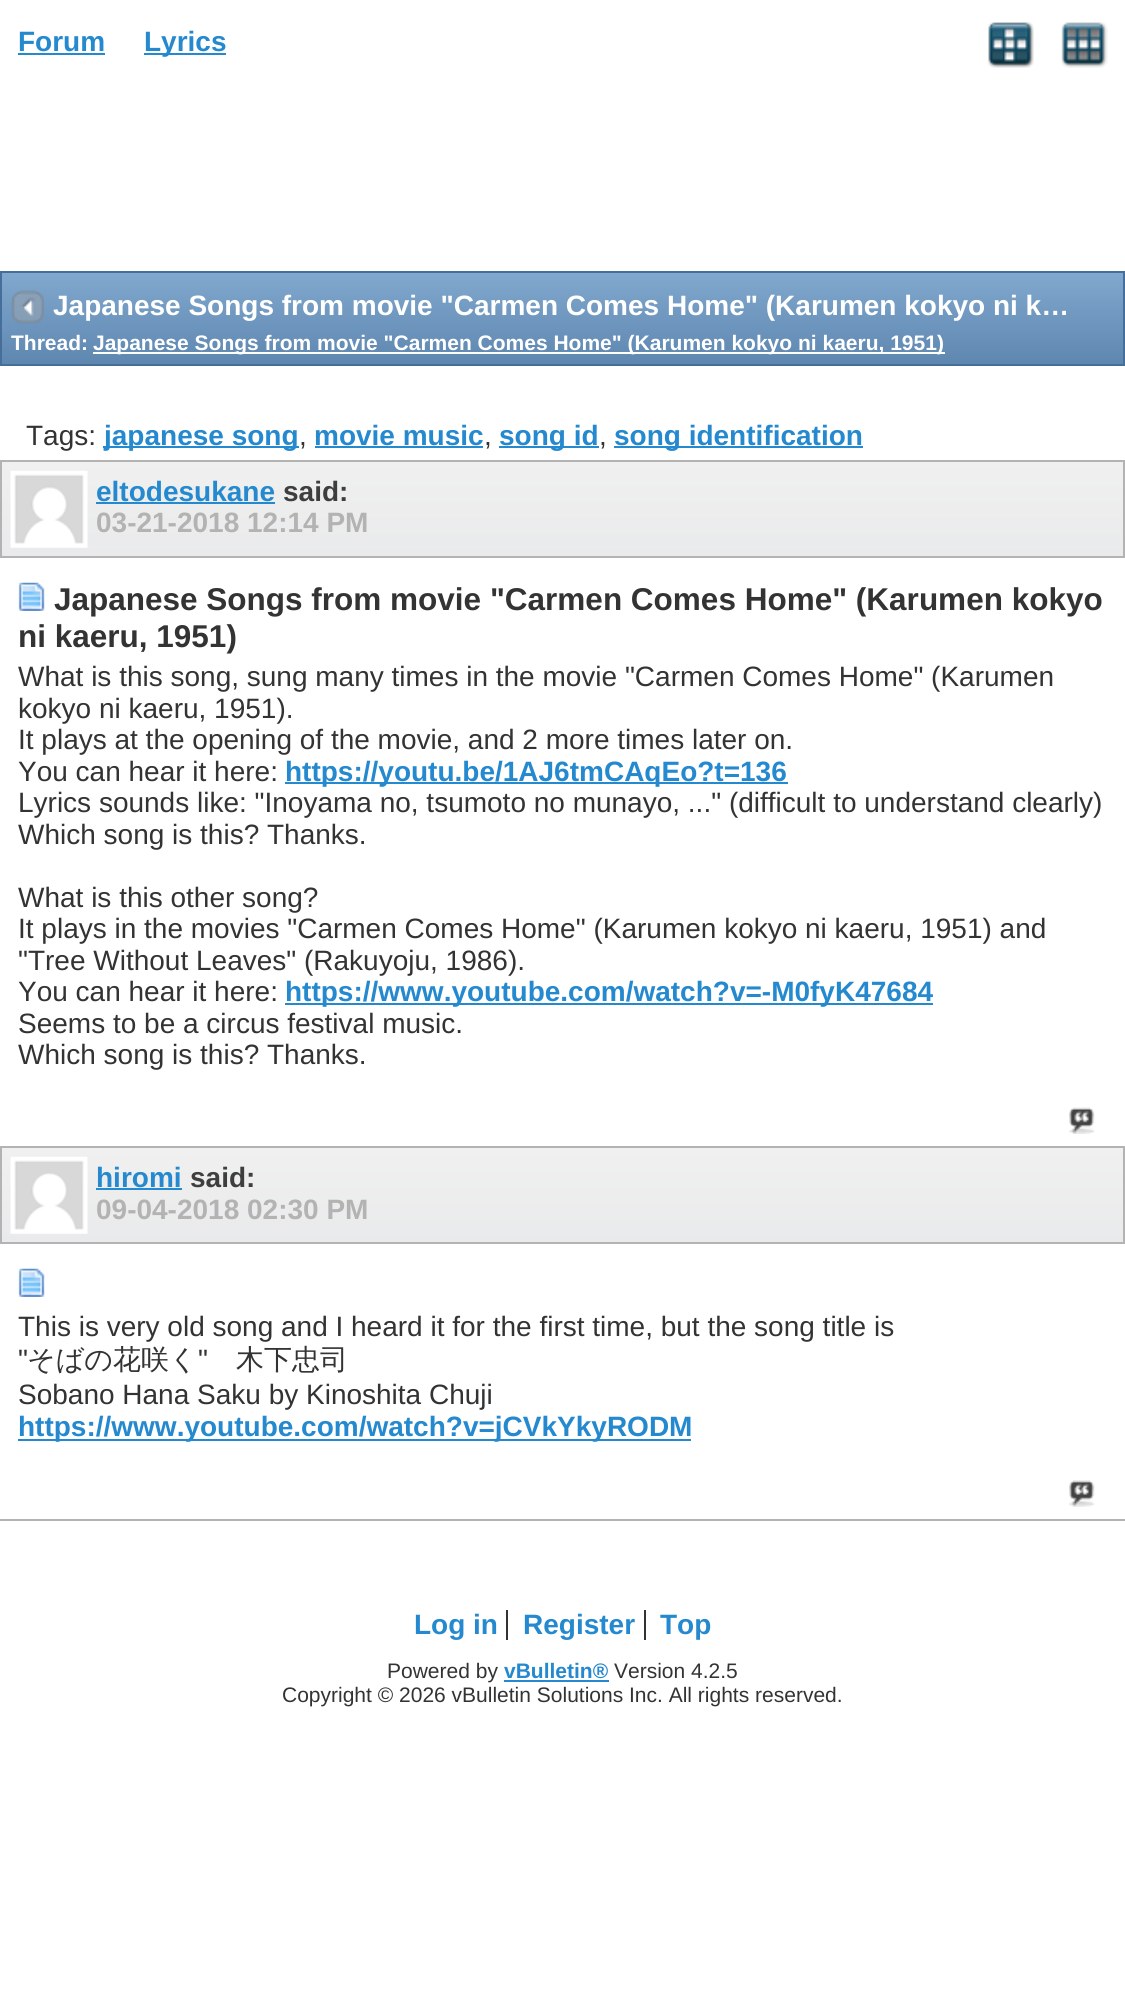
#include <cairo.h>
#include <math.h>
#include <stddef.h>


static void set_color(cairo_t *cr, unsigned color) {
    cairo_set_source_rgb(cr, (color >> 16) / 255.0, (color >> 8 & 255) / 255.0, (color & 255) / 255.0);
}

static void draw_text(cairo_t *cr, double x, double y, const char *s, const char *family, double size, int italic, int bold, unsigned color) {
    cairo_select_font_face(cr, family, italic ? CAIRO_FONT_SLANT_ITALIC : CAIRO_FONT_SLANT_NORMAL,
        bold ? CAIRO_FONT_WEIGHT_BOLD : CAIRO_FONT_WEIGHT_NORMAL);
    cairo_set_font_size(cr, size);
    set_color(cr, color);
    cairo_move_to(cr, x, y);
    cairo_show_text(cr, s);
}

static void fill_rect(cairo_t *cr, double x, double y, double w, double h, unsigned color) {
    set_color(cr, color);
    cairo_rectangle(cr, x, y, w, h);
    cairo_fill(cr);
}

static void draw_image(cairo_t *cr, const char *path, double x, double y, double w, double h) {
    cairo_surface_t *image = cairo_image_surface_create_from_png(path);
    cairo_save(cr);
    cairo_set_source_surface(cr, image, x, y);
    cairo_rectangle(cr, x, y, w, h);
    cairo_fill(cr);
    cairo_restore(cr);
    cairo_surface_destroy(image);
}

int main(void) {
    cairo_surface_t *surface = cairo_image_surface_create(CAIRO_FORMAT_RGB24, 1125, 1995);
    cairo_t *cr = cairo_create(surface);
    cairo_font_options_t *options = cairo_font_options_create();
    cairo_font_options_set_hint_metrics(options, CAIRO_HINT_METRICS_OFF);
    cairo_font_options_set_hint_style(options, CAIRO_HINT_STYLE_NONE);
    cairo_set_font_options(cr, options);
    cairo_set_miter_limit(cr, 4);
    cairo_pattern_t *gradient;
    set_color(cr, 0xFFFFFF);
    cairo_paint(cr);
    draw_text(cr, 18, 51, "Forum", "Liberation Sans", 28, 0, 1, 0x2489CE);
    fill_rect(cr, 18, 53, 87, 2, 0x2489CE);
    fill_rect(cr, 144, 53, 82, 2, 0x2489CE);
    draw_text(cr, 144, 51, "Lyrics", "Liberation Sans", 28, 0, 1, 0x2489CE);
    draw_image(cr, "assets/img1.png", 988, 22, 46, 46);
    draw_image(cr, "assets/img2.png", 1061, 22, 47, 46);
    gradient = cairo_pattern_create_linear(563, 273, 563, 364);
    cairo_pattern_add_color_stop_rgba(gradient, 0, 0.506, 0.659, 0.808, 1);
    cairo_pattern_add_color_stop_rgba(gradient, 1, 0.369, 0.529, 0.69, 1);
    cairo_set_source(cr, gradient);
    cairo_pattern_destroy(gradient);
    cairo_rectangle(cr, 2, 273, 1121, 91);
    cairo_fill(cr);
    cairo_rectangle(cr, 1, 272, 1123, 93);
    set_color(cr, 0x456F9A);
    cairo_stroke(cr);
    draw_image(cr, "assets/img3.png", 11, 290, 33, 34);
    draw_text(cr, 53, 315, "Japanese Songs from movie \"Carmen Comes Home\" (Karumen kokyo ni k…", "Liberation Sans", 28, 0, 1, 0xFFFFFF);
    draw_text(cr, 11, 350, "Thread:", "Liberation Sans", 21, 0, 1, 0xFFFFFF);
    fill_rect(cr, 93, 352, 852, 2, 0xFFFFFF);
    draw_text(cr, 93, 350, "Japanese Songs from movie \"Carmen Comes Home\" (Karumen kokyo ni kaeru, 1951)", "Liberation Sans", 21, 0, 1, 0xFFFFFF);
    draw_text(cr, 26, 445, "Tags:", "Liberation Sans", 28, 0, 0, 0x333333);
    fill_rect(cr, 103, 446, 196, 2, 0x2489CE);
    draw_text(cr, 104, 445, "japanese song", "Liberation Sans", 28, 0, 1, 0x2489CE);
    draw_text(cr, 299, 445, ",", "Liberation Sans", 28, 0, 0, 0x333333);
    draw_text(cr, 314, 445, "movie music", "Liberation Sans", 28, 0, 1, 0x2489CE);
    fill_rect(cr, 315, 446, 168, 2, 0x2489CE);
    draw_text(cr, 484, 445, ",", "Liberation Sans", 28, 0, 0, 0x333333);
    fill_rect(cr, 499, 446, 100, 2, 0x2489CE);
    draw_text(cr, 499, 445, "song id", "Liberation Sans", 28, 0, 1, 0x2489CE);
    draw_text(cr, 599, 445, ",", "Liberation Sans", 28, 0, 0, 0x333333);
    fill_rect(cr, 614, 446, 249, 2, 0x2489CE);
    draw_text(cr, 614, 445, "song identification", "Liberation Sans", 28, 0, 1, 0x2489CE);
    fill_rect(cr, 0, 1519, 1125, 2, 0xB3B3B3);
    gradient = cairo_pattern_create_linear(563, 462, 563, 557);
    cairo_pattern_add_color_stop_rgba(gradient, 0, 0.941, 0.941, 0.941, 1);
    cairo_pattern_add_color_stop_rgba(gradient, 1, 0.914, 0.918, 0.922, 1);
    cairo_set_source(cr, gradient);
    cairo_pattern_destroy(gradient);
    cairo_rectangle(cr, 2, 462, 1121, 94);
    cairo_fill(cr);
    cairo_rectangle(cr, 1, 461, 1123, 96);
    set_color(cr, 0xB3B3B3);
    cairo_stroke(cr);
    draw_image(cr, "assets/img4.png", 10, 470, 78, 78);
    draw_text(cr, 96, 501, "eltodesukane", "Liberation Sans", 28, 0, 1, 0x2489CE);
    fill_rect(cr, 96, 502, 179, 2, 0x2489CE);
    draw_text(cr, 283, 501, "said:", "Liberation Sans", 28, 0, 1, 0x3E3E3E);
    draw_text(cr, 96, 532, "03-21-2018 12:14 PM", "Liberation Sans", 28, 0, 1, 0xB3B3B3);
    draw_image(cr, "assets/img5.png", 18, 582, 27, 29);
    draw_text(cr, 54, 610, "Japanese Songs from movie \"Carmen Comes Home\" (Karumen kokyo", "Liberation Sans", 31.5, 0, 1, 0x333333);
    draw_text(cr, 18, 647, "ni kaeru, 1951)", "Liberation Sans", 31.5, 0, 1, 0x333333);
    draw_text(cr, 18, 686, "What is this song, sung many times in the movie \"Carmen Comes Home\" (Karumen", "Liberation Sans", 28, 0, 0, 0x333333);
    draw_text(cr, 18, 718, "kokyo ni kaeru, 1951).", "Liberation Sans", 28, 0, 0, 0x333333);
    draw_text(cr, 18, 749, "It plays at the opening of the movie, and 2 more times later on.", "Liberation Sans", 28, 0, 0, 0x333333);
    draw_text(cr, 18, 781, "You can hear it here:", "Liberation Sans", 28, 0, 0, 0x333333);
    fill_rect(cr, 285, 782, 503, 2, 0x2489CE);
    draw_text(cr, 285, 781, "https://youtu.be/1AJ6tmCAqEo?t=136", "Liberation Sans", 28, 0, 1, 0x2489CE);
    draw_text(cr, 18, 812, "Lyrics sounds like: \"Inoyama no, tsumoto no munayo, ...\" (difficult to understand clearly)", "Liberation Sans", 28, 0, 0, 0x333333);
    draw_text(cr, 18, 844, "Which song is this? Thanks.", "Liberation Sans", 28, 0, 0, 0x333333);
    draw_text(cr, 18, 907, "What is this other song?", "Liberation Sans", 28, 0, 0, 0x333333);
    draw_text(cr, 18, 938, "It plays in the movies \"Carmen Comes Home\" (Karumen kokyo ni kaeru, 1951) and", "Liberation Sans", 28, 0, 0, 0x333333);
    draw_text(cr, 18, 970, "\"Tree Without Leaves\" (Rakuyoju, 1986).", "Liberation Sans", 28, 0, 0, 0x333333);
    draw_text(cr, 18, 1001, "You can hear it here:", "Liberation Sans", 28, 0, 0, 0x333333);
    fill_rect(cr, 285, 1003, 648, 2, 0x2489CE);
    draw_text(cr, 285, 1001, "https://www.youtube.com/watch?v=-M0fyK47684", "Liberation Sans", 28, 0, 1, 0x2489CE);
    draw_text(cr, 18, 1033, "Seems to be a circus festival music.", "Liberation Sans", 28, 0, 0, 0x333333);
    draw_text(cr, 18, 1064, "Which song is this? Thanks.", "Liberation Sans", 28, 0, 0, 0x333333);
    draw_image(cr, "assets/img6.png", 1069, 1107, 26, 27);
    gradient = cairo_pattern_create_linear(563, 1148, 563, 1243);
    cairo_pattern_add_color_stop_rgba(gradient, 0, 0.941, 0.941, 0.941, 1);
    cairo_pattern_add_color_stop_rgba(gradient, 1, 0.914, 0.918, 0.922, 1);
    cairo_set_source(cr, gradient);
    cairo_pattern_destroy(gradient);
    cairo_rectangle(cr, 2, 1148, 1121, 94);
    cairo_fill(cr);
    cairo_rectangle(cr, 1, 1147, 1123, 96);
    set_color(cr, 0xB3B3B3);
    cairo_stroke(cr);
    draw_image(cr, "assets/img4.png", 10, 1156, 78, 78);
    draw_text(cr, 96, 1187, "hiromi", "Liberation Sans", 28, 0, 1, 0x2489CE);
    fill_rect(cr, 96, 1188, 86, 2, 0x2489CE);
    draw_text(cr, 190, 1187, "said:", "Liberation Sans", 28, 0, 1, 0x3E3E3E);
    draw_text(cr, 96, 1219, "09-04-2018 02:30 PM", "Liberation Sans", 28, 0, 1, 0xB3B3B3);
    draw_image(cr, "assets/img5.png", 18, 1268, 27, 29);
    draw_text(cr, 18, 1336, "This is very old song and I heard it for the first time, but the song title is", "Liberation Sans", 28, 0, 0, 0x333333);
    draw_text(cr, 18, 1369, "\"", "Liberation Sans", 28, 0, 0, 0x333333);
    draw_text(cr, 27, 1369, "そばの花咲く", "WenQuanYi Zen Hei Medium", 28, 0, 0, 0x333333);
    draw_text(cr, 198, 1369, "\"", "Liberation Sans", 28, 0, 0, 0x333333);
    draw_text(cr, 236, 1369, "木下忠司", "WenQuanYi Zen Hei Medium", 28, 0, 0, 0x333333);
    draw_text(cr, 18, 1404, "Sobano Hana Saku by Kinoshita Chuji", "Liberation Sans", 28, 0, 0, 0x333333);
    fill_rect(cr, 18, 1439, 673, 2, 0x2489CE);
    draw_text(cr, 18, 1436, "https://www.youtube.com/watch?v=jCVkYkyRODM", "Liberation Sans", 28, 0, 1, 0x2489CE);
    draw_image(cr, "assets/img7.png", 1069, 1480, 26, 27);
    draw_text(cr, 414, 1634, "Log in", "Liberation Sans", 28, 0, 1, 0x2489CE);
    fill_rect(cr, 506, 1610, 2, 30, 0x333333);
    draw_text(cr, 523, 1634, "Register", "Liberation Sans", 28, 0, 1, 0x2489CE);
    fill_rect(cr, 644, 1610, 2, 30, 0x333333);
    draw_text(cr, 660, 1634, "Top", "Liberation Sans", 28, 0, 1, 0x2489CE);
    draw_text(cr, 387, 1678, "Powered by", "Liberation Sans", 21, 0, 0, 0x333333);
    draw_text(cr, 504, 1678, "vBulletin®", "Liberation Sans", 21, 0, 1, 0x2489CE);
    fill_rect(cr, 504, 1680, 105, 2, 0x2489CE);
    draw_text(cr, 614, 1678, "Version 4.2.5", "Liberation Sans", 21, 0, 0, 0x333333);
    draw_text(cr, 282, 1702, "Copyright © 2026 vBulletin Solutions Inc. All rights reserved.", "Liberation Sans", 21, 0, 0, 0x333333);
    cairo_surface_write_to_png(surface, "output.png");
    cairo_font_options_destroy(options);
    cairo_destroy(cr);
    cairo_surface_destroy(surface);
    return 0;
}
